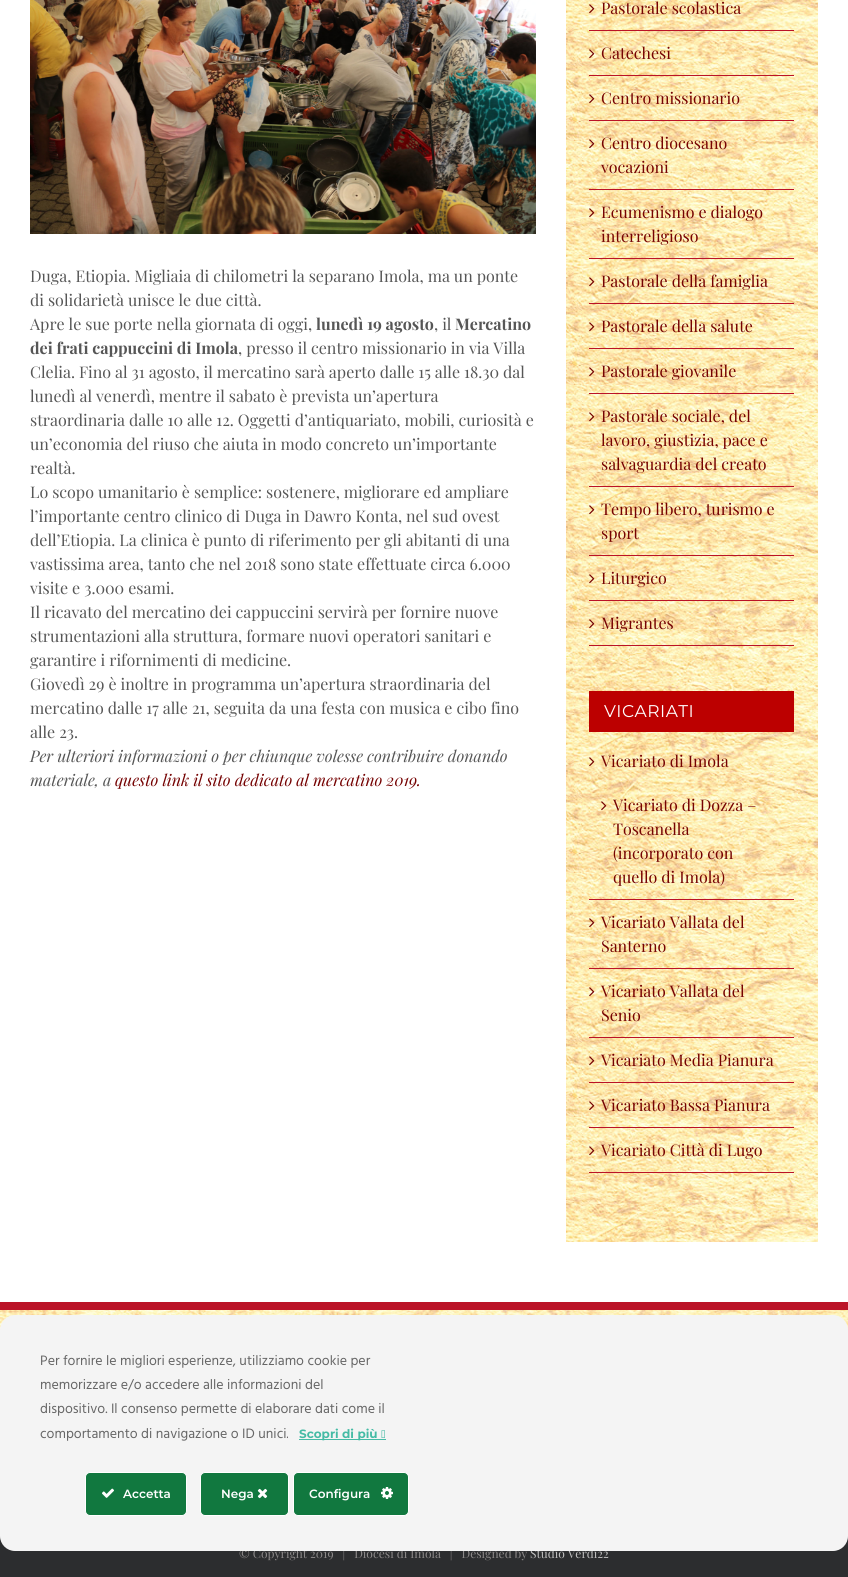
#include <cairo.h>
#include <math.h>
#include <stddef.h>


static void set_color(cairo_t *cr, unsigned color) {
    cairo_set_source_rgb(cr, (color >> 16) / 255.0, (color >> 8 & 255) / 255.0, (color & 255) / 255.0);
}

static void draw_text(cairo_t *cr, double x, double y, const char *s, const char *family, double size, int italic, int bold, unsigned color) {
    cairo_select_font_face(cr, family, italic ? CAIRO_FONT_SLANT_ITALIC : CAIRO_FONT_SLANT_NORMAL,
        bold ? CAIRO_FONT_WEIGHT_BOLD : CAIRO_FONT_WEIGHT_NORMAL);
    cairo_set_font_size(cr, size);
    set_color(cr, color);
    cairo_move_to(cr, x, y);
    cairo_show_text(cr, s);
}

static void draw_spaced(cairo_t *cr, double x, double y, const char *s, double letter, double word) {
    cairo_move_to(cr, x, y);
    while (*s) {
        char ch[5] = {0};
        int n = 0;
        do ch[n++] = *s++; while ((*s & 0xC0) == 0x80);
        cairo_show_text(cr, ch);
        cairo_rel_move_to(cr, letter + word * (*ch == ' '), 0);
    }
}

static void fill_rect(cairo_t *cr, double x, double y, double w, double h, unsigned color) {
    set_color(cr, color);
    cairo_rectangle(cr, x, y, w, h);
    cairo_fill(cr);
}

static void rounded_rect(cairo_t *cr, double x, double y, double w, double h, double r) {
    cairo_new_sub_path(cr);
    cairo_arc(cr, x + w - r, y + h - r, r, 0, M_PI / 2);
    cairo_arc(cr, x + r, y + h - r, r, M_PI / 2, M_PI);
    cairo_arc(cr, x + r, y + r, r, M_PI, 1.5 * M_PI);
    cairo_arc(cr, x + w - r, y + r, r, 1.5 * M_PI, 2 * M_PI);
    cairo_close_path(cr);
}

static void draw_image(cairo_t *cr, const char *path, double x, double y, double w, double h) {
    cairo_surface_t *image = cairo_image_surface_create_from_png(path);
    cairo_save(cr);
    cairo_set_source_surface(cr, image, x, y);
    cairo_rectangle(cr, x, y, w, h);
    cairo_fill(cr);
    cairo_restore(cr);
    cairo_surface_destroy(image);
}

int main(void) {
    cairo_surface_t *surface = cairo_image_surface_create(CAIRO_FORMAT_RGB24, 848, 1577);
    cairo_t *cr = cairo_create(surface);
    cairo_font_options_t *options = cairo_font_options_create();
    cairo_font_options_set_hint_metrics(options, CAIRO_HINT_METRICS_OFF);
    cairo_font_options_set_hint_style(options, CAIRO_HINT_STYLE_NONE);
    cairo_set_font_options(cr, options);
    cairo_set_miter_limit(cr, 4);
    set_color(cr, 0xFFFFFF);
    cairo_paint(cr);
    draw_image(cr, "assets/img1.png", 30, 0, 506, 234);
    draw_text(cr, 30, 282, "Duga, Etiopia. Migliaia di chilometri la separano Imola, ma un ponte", "Playfair Display", 16, 0, 0, 0x565656);
    draw_text(cr, 30, 306, "di solidarietà unisce le due città.", "Playfair Display", 16, 0, 0, 0x565656);
    draw_text(cr, 30, 330, "Apre le sue porte nella giornata di oggi,", "Playfair Display", 16, 0, 0, 0x565656);
    draw_text(cr, 316, 330, "lunedì 19 agosto", "Playfair Display", 16, 0, 1, 0x565656);
    draw_text(cr, 434, 330, ", il", "Playfair Display", 16, 0, 0, 0x565656);
    draw_text(cr, 455, 330, "Mercatino", "Playfair Display", 16, 0, 1, 0x565656);
    draw_text(cr, 30, 354, "dei frati cappuccini di Imola", "Playfair Display", 16, 0, 1, 0x565656);
    draw_text(cr, 238, 354, ", presso il centro missionario in via Villa", "Playfair Display", 16, 0, 0, 0x565656);
    draw_text(cr, 30, 378, "Clelia. Fino al 31 agosto, il mercatino sarà aperto dalle 15 alle 18.30 dal", "Playfair Display", 16, 0, 0, 0x565656);
    draw_text(cr, 30, 402, "lunedì al venerdì, mentre il sabato è prevista un’apertura", "Playfair Display", 16, 0, 0, 0x565656);
    draw_text(cr, 30, 426, "straordinaria dalle 10 alle 12. Oggetti d’antiquariato, mobili, curiosità e", "Playfair Display", 16, 0, 0, 0x565656);
    draw_text(cr, 30, 450, "un’economia del riuso che aiuta in modo concreto un’importante", "Playfair Display", 16, 0, 0, 0x565656);
    draw_text(cr, 30, 474, "realtà.", "Playfair Display", 16, 0, 0, 0x565656);
    draw_text(cr, 30, 498, "Lo scopo umanitario è semplice: sostenere, migliorare ed ampliare", "Playfair Display", 16, 0, 0, 0x565656);
    draw_text(cr, 30, 522, "l’importante centro clinico di Duga in Dawro Konta, nel sud ovest", "Playfair Display", 16, 0, 0, 0x565656);
    draw_text(cr, 30, 546, "dell’Etiopia. La clinica è punto di riferimento per gli abitanti di una", "Playfair Display", 16, 0, 0, 0x565656);
    draw_text(cr, 30, 570, "vastissima area, tanto che nel 2018 sono state effettuate circa 6.000", "Playfair Display", 16, 0, 0, 0x565656);
    draw_text(cr, 30, 594, "visite e 3.000 esami.", "Playfair Display", 16, 0, 0, 0x565656);
    draw_text(cr, 30, 618, "Il ricavato del mercatino dei cappuccini servirà per fornire nuove", "Playfair Display", 16, 0, 0, 0x565656);
    draw_text(cr, 30, 642, "strumentazioni alla struttura, formare nuovi operatori sanitari e", "Playfair Display", 16, 0, 0, 0x565656);
    draw_text(cr, 30, 666, "garantire i rifornimenti di medicine.", "Playfair Display", 16, 0, 0, 0x565656);
    draw_text(cr, 30, 690, "Giovedì 29 è inoltre in programma un’apertura straordinaria del", "Playfair Display", 16, 0, 0, 0x565656);
    draw_text(cr, 30, 714, "mercatino dalle 17 alle 21, seguita da una festa con musica e cibo fino", "Playfair Display", 16, 0, 0, 0x565656);
    draw_text(cr, 30, 738, "alle 23.", "Playfair Display", 16, 0, 0, 0x565656);
    draw_text(cr, 30, 762, "Per ulteriori informazioni o per chiunque volesse contribuire donando", "Playfair Display", 16, 1, 0, 0x565656);
    draw_text(cr, 30, 786, "materiale, a", "Playfair Display", 16, 1, 0, 0x565656);
    draw_text(cr, 115, 786, "questo link il sito dedicato al mercatino 2019.", "Playfair Display", 16, 1, 0, 0x750202);
    draw_image(cr, "assets/img2.png", 566, 0, 252, 1242);
    fill_rect(cr, 589, 30, 205, 1, 0xBB1327);
    draw_image(cr, "assets/img3.png", 589, 4, 6, 10);
    draw_text(cr, 601, 14, "Pastorale scolastica", "Playfair Display", 16, 0, 0, 0x750202);
    fill_rect(cr, 589, 75, 205, 1, 0xBB1327);
    draw_image(cr, "assets/img4.png", 589, 49, 6, 10);
    draw_text(cr, 601, 59, "Catechesi", "Playfair Display", 16, 0, 0, 0x750202);
    fill_rect(cr, 589, 120, 205, 1, 0xBB1327);
    draw_image(cr, "assets/img5.png", 589, 94, 6, 10);
    draw_text(cr, 601, 104, "Centro missionario", "Playfair Display", 16, 0, 0, 0x750202);
    fill_rect(cr, 589, 189, 205, 1, 0xBB1327);
    draw_image(cr, "assets/img6.png", 589, 139, 6, 10);
    draw_text(cr, 601, 149, "Centro diocesano", "Playfair Display", 16, 0, 0, 0x750202);
    draw_text(cr, 601, 173, "vocazioni", "Playfair Display", 16, 0, 0, 0x750202);
    fill_rect(cr, 589, 258, 205, 1, 0xBB1327);
    draw_image(cr, "assets/img7.png", 589, 208, 6, 10);
    draw_text(cr, 601, 218, "Ecumenismo e dialogo", "Playfair Display", 16, 0, 0, 0x750202);
    draw_text(cr, 601, 242, "interreligioso", "Playfair Display", 16, 0, 0, 0x750202);
    fill_rect(cr, 589, 303, 205, 1, 0xBB1327);
    draw_image(cr, "assets/img8.png", 589, 277, 6, 10);
    draw_text(cr, 601, 287, "Pastorale della famiglia", "Playfair Display", 16, 0, 0, 0x750202);
    fill_rect(cr, 589, 348, 205, 1, 0xBB1327);
    draw_image(cr, "assets/img9.png", 589, 322, 6, 10);
    draw_text(cr, 601, 332, "Pastorale della salute", "Playfair Display", 16, 0, 0, 0x750202);
    fill_rect(cr, 589, 393, 205, 1, 0xBB1327);
    draw_image(cr, "assets/img10.png", 589, 367, 6, 10);
    draw_text(cr, 601, 377, "Pastorale giovanile", "Playfair Display", 16, 0, 0, 0x750202);
    fill_rect(cr, 589, 486, 205, 1, 0xBB1327);
    draw_image(cr, "assets/img11.png", 589, 412, 6, 10);
    draw_text(cr, 601, 422, "Pastorale sociale, del", "Playfair Display", 16, 0, 0, 0x750202);
    draw_text(cr, 601, 446, "lavoro, giustizia, pace e", "Playfair Display", 16, 0, 0, 0x750202);
    draw_text(cr, 601, 470, "salvaguardia del creato", "Playfair Display", 16, 0, 0, 0x750202);
    fill_rect(cr, 589, 555, 205, 1, 0xBB1327);
    draw_image(cr, "assets/img12.png", 589, 505, 6, 10);
    draw_text(cr, 601, 515, "Tempo libero, turismo e", "Playfair Display", 16, 0, 0, 0x750202);
    draw_text(cr, 601, 539, "sport", "Playfair Display", 16, 0, 0, 0x750202);
    fill_rect(cr, 589, 600, 205, 1, 0xBB1327);
    draw_image(cr, "assets/img13.png", 589, 574, 6, 10);
    draw_text(cr, 601, 584, "Liturgico", "Playfair Display", 16, 0, 0, 0x750202);
    fill_rect(cr, 589, 645, 205, 1, 0xBB1327);
    draw_image(cr, "assets/img14.png", 589, 619, 6, 10);
    draw_text(cr, 601, 629, "Migrantes", "Playfair Display", 16, 0, 0, 0x750202);
    fill_rect(cr, 589, 691, 205, 41, 0xBC0000);
    cairo_select_font_face(cr, "Montserrat", CAIRO_FONT_SLANT_NORMAL, CAIRO_FONT_WEIGHT_NORMAL);
    cairo_set_font_size(cr, 17);
    set_color(cr, 0xFFFFFF);
    draw_spaced(cr, 604, 717, "VICARIATI", 0.5, 0);
    fill_rect(cr, 589, 899, 205, 1, 0xBB1327);
    draw_image(cr, "assets/img15.png", 589, 757, 6, 10);
    draw_text(cr, 601, 767, "Vicariato di Imola", "Playfair Display", 16, 0, 0, 0x750202);
    draw_image(cr, "assets/img16.png", 601, 801, 6, 10);
    draw_text(cr, 613, 811, "Vicariato di Dozza –", "Playfair Display", 16, 0, 0, 0x750202);
    draw_text(cr, 613, 835, "Toscanella", "Playfair Display", 16, 0, 0, 0x750202);
    draw_text(cr, 613, 859, "(incorporato con", "Playfair Display", 16, 0, 0, 0x750202);
    draw_text(cr, 613, 883, "quello di Imola)", "Playfair Display", 16, 0, 0, 0x750202);
    fill_rect(cr, 589, 968, 205, 1, 0xBB1327);
    draw_image(cr, "assets/img17.png", 589, 918, 6, 10);
    draw_text(cr, 601, 928, "Vicariato Vallata del", "Playfair Display", 16, 0, 0, 0x750202);
    draw_text(cr, 601, 952, "Santerno", "Playfair Display", 16, 0, 0, 0x750202);
    fill_rect(cr, 589, 1037, 205, 1, 0xBB1327);
    draw_image(cr, "assets/img18.png", 589, 987, 6, 10);
    draw_text(cr, 601, 997, "Vicariato Vallata del", "Playfair Display", 16, 0, 0, 0x750202);
    draw_text(cr, 601, 1021, "Senio", "Playfair Display", 16, 0, 0, 0x750202);
    fill_rect(cr, 589, 1082, 205, 1, 0xBB1327);
    draw_image(cr, "assets/img19.png", 589, 1056, 6, 10);
    draw_text(cr, 601, 1066, "Vicariato Media Pianura", "Playfair Display", 16, 0, 0, 0x750202);
    fill_rect(cr, 589, 1127, 205, 1, 0xBB1327);
    draw_image(cr, "assets/img20.png", 589, 1101, 6, 10);
    draw_text(cr, 601, 1111, "Vicariato Bassa Pianura", "Playfair Display", 16, 0, 0, 0x750202);
    fill_rect(cr, 589, 1172, 205, 1, 0xBB1327);
    draw_image(cr, "assets/img21.png", 589, 1146, 6, 10);
    draw_text(cr, 601, 1156, "Vicariato Città di Lugo", "Playfair Display", 16, 0, 0, 0x750202);
    draw_image(cr, "assets/img22.png", 0, 1310, 848, 20);
    fill_rect(cr, 0, 1302, 848, 8, 0xBB1327);
    fill_rect(cr, 0, 1536, 848, 41, 0x2C2D2F);
    draw_text(cr, 239, 1558, "© Copyright 2019   |   Diocesi di Imola   |   Designed by", "Playfair Display", 12, 0, 0, 0x8C8989);
    draw_text(cr, 530, 1558, "Studio Verdi22", "Playfair Display", 12, 0, 0, 0xBFBFBF);
    set_color(cr, 0xF4F4F4);
    rounded_rect(cr, 0, 1315, 848, 236, 15);
    cairo_fill(cr);
    draw_text(cr, 40, 1365, "Per fornire le migliori esperienze, utilizziamo cookie per", "Hind", 14, 0, 0, 0x666666);
    draw_text(cr, 40, 1389, "memorizzare e/o accedere alle informazioni del", "Hind", 14, 0, 0, 0x666666);
    draw_text(cr, 40, 1413, "dispositivo. Il consenso permette di elaborare dati come il", "Hind", 14, 0, 0, 0x666666);
    draw_text(cr, 40, 1438, "comportamento di navigazione o ID unici.", "Hind", 14, 0, 0, 0x666666);
    fill_rect(cr, 299, 1439, 87, 1, 0x45BBA5);
    draw_text(cr, 299, 1438, "Scopri di più", "Montserrat", 12, 0, 1, 0x45BBA5);
    draw_image(cr, "assets/img23.png", 381, 1430, 4, 8);
    set_color(cr, 0x11783F);
    rounded_rect(cr, 85.5, 1472.5, 101, 43, 4.5);
    cairo_fill_preserve(cr);
    set_color(cr, 0xFFFFFF);
    cairo_set_line_width(cr, 1);
    cairo_stroke(cr);
    draw_image(cr, "assets/img24.png", 102, 1488, 12, 10);
    draw_text(cr, 123, 1498, "Accetta", "Montserrat SemiBold", 12, 0, 0, 0xFFFFFF);
    set_color(cr, 0x11783F);
    rounded_rect(cr, 200.5, 1472.5, 88, 43, 4.5);
    cairo_fill_preserve(cr);
    set_color(cr, 0xFFFFFF);
    cairo_stroke(cr);
    draw_text(cr, 221, 1498, "Nega", "Montserrat SemiBold", 12, 0, 0, 0xFFFFFF);
    draw_image(cr, "assets/img25.png", 257, 1488, 11, 11);
    set_color(cr, 0x11783F);
    rounded_rect(cr, 293.5, 1472.5, 115, 43, 4.5);
    cairo_fill_preserve(cr);
    set_color(cr, 0xFFFFFF);
    cairo_stroke(cr);
    draw_text(cr, 309, 1498, "Configura", "Montserrat SemiBold", 12, 0, 0, 0xFFFFFF);
    draw_image(cr, "assets/img26.png", 381, 1487, 12, 12);
    cairo_surface_write_to_png(surface, "output.png");
    cairo_font_options_destroy(options);
    cairo_destroy(cr);
    cairo_surface_destroy(surface);
    return 0;
}
